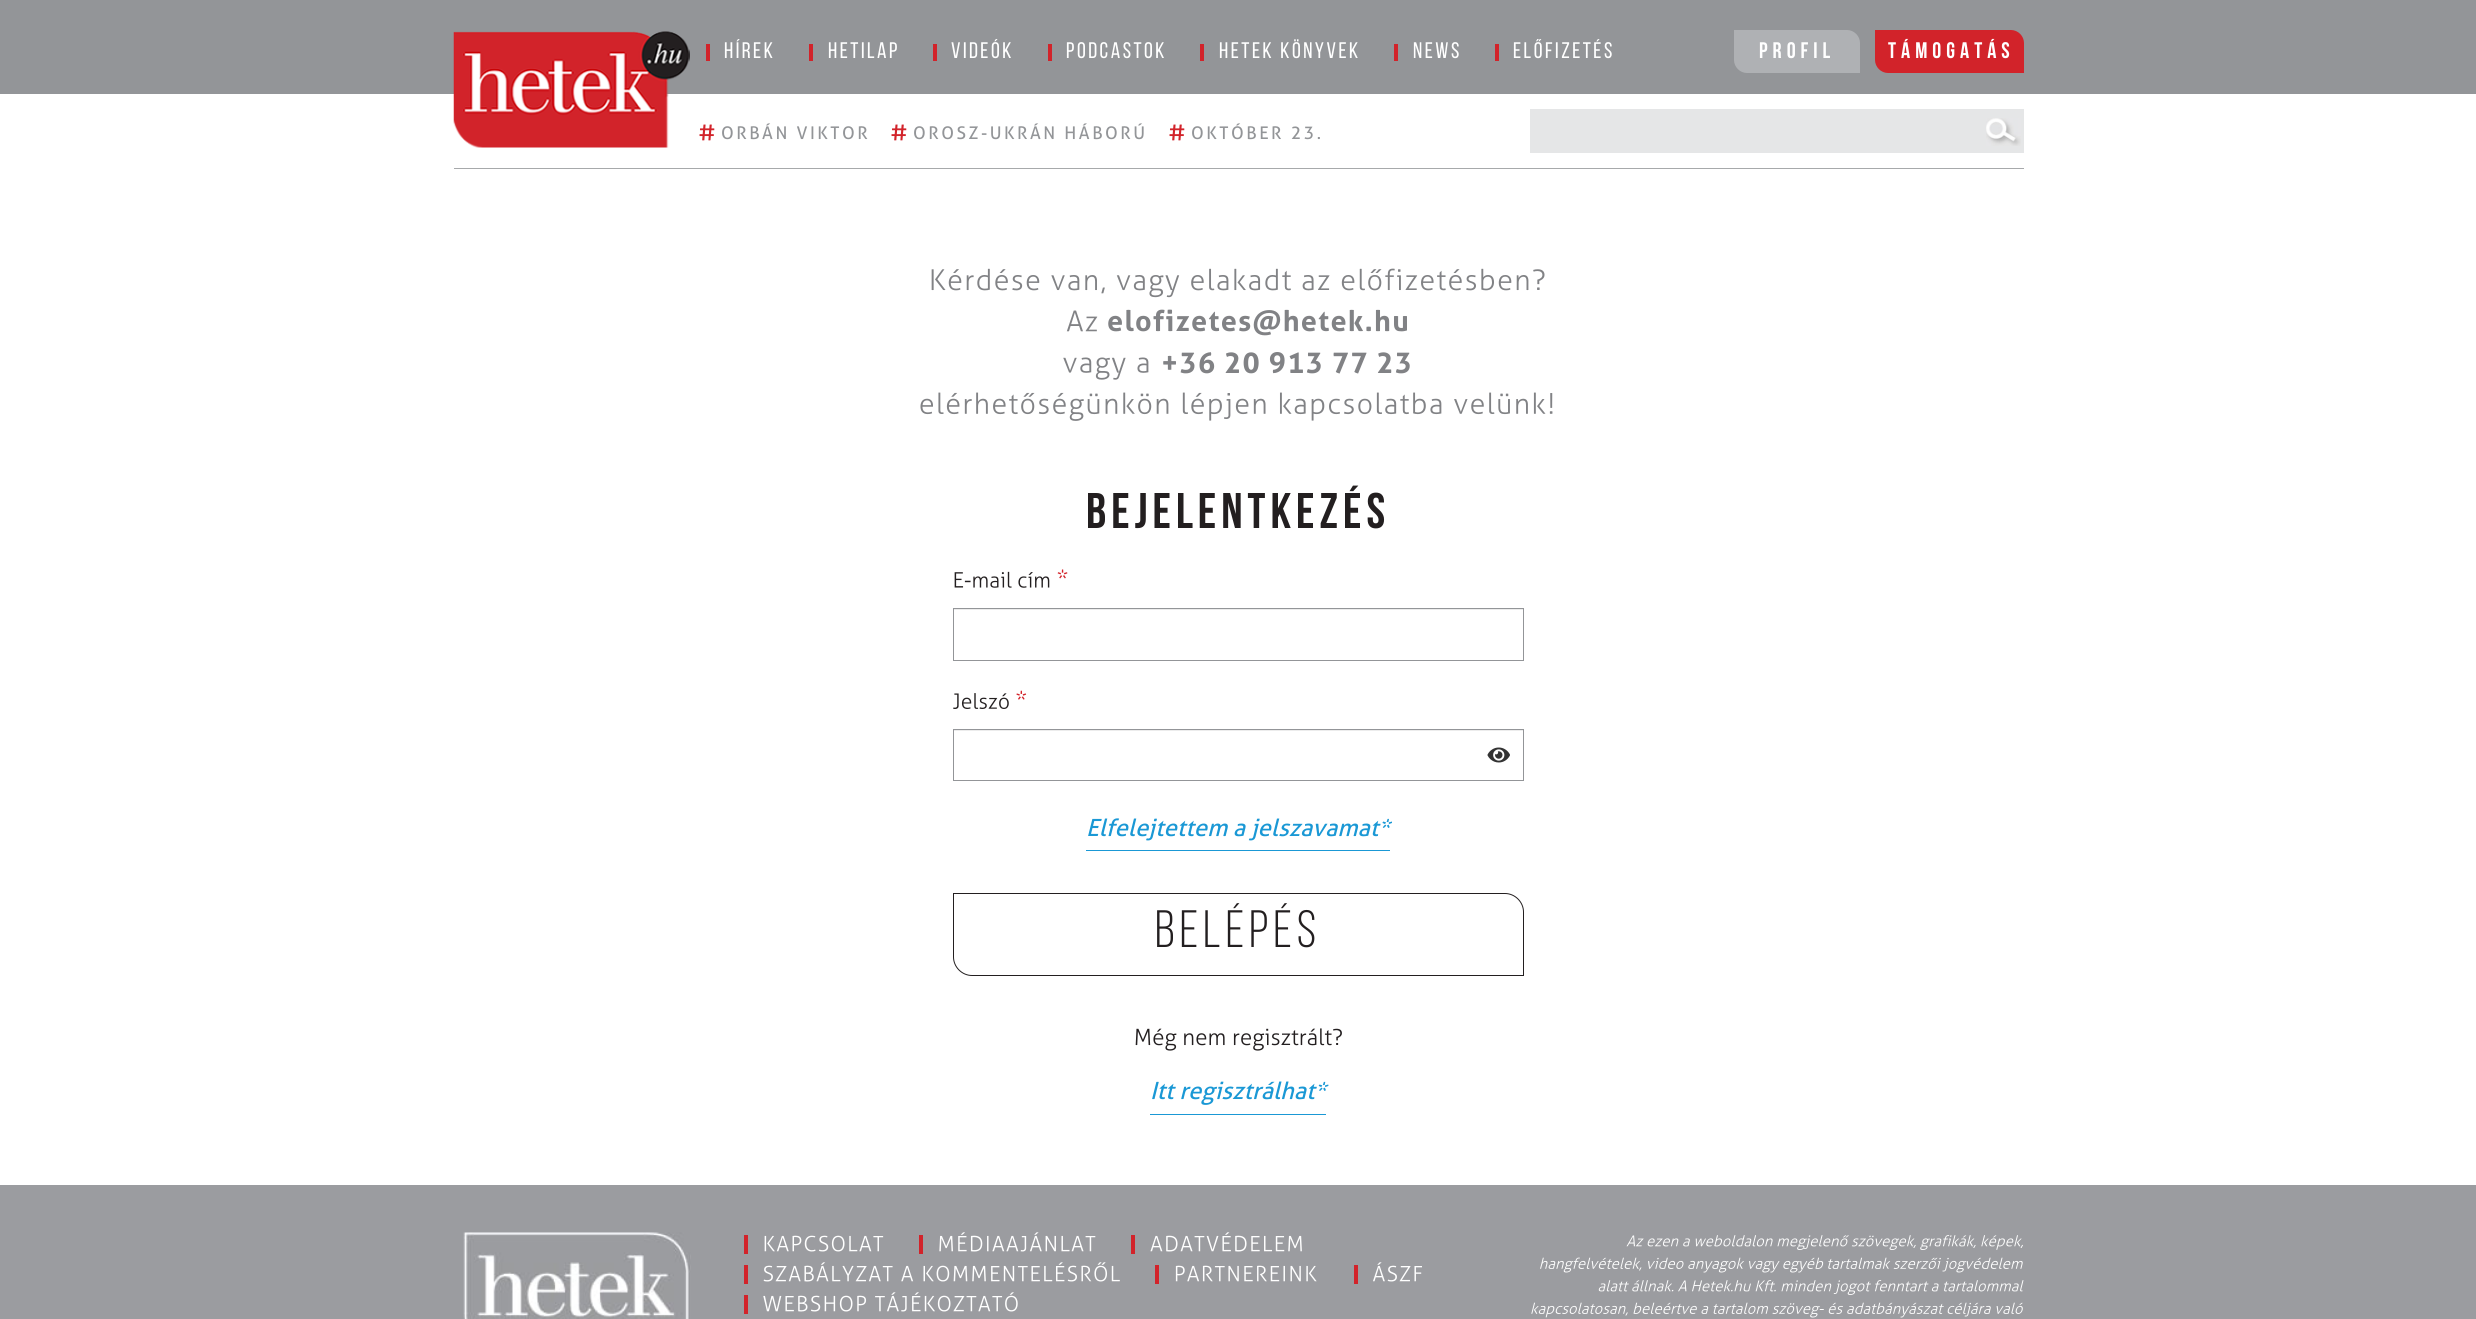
#include <cairo.h>
#include <math.h>
#include <stddef.h>


static void set_color(cairo_t *cr, unsigned color) {
    cairo_set_source_rgb(cr, (color >> 16) / 255.0, (color >> 8 & 255) / 255.0, (color & 255) / 255.0);
}

static void draw_text(cairo_t *cr, double x, double y, const char *s, const char *family, double size, int italic, int bold, unsigned color) {
    cairo_select_font_face(cr, family, italic ? CAIRO_FONT_SLANT_ITALIC : CAIRO_FONT_SLANT_NORMAL,
        bold ? CAIRO_FONT_WEIGHT_BOLD : CAIRO_FONT_WEIGHT_NORMAL);
    cairo_set_font_size(cr, size);
    set_color(cr, color);
    cairo_move_to(cr, x, y);
    cairo_show_text(cr, s);
}

static void draw_spaced(cairo_t *cr, double x, double y, const char *s, double letter, double word) {
    cairo_move_to(cr, x, y);
    while (*s) {
        char ch[5] = {0};
        int n = 0;
        do ch[n++] = *s++; while ((*s & 0xC0) == 0x80);
        cairo_show_text(cr, ch);
        cairo_rel_move_to(cr, letter + word * (*ch == ' '), 0);
    }
}

static void fill_rect(cairo_t *cr, double x, double y, double w, double h, unsigned color) {
    set_color(cr, color);
    cairo_rectangle(cr, x, y, w, h);
    cairo_fill(cr);
}

static void draw_image(cairo_t *cr, const char *path, double x, double y, double w, double h) {
    cairo_surface_t *image = cairo_image_surface_create_from_png(path);
    cairo_save(cr);
    cairo_set_source_surface(cr, image, x, y);
    cairo_rectangle(cr, x, y, w, h);
    cairo_fill(cr);
    cairo_restore(cr);
    cairo_surface_destroy(image);
}

int main(void) {
    cairo_surface_t *surface = cairo_image_surface_create(CAIRO_FORMAT_RGB24, 2476, 1319);
    cairo_t *cr = cairo_create(surface);
    cairo_font_options_t *options = cairo_font_options_create();
    cairo_font_options_set_hint_metrics(options, CAIRO_HINT_METRICS_OFF);
    cairo_font_options_set_hint_style(options, CAIRO_HINT_STYLE_NONE);
    cairo_set_font_options(cr, options);
    cairo_set_miter_limit(cr, 4);
    set_color(cr, 0xFFFFFF);
    cairo_paint(cr);
    fill_rect(cr, 0, 0, 2476, 94, 0x939598);
    draw_image(cr, "assets/img1.png", 453, 31, 237, 117);
    fill_rect(cr, 706, 44, 4, 17, 0xD2232A);
    cairo_select_font_face(cr, "Bebas Neue", CAIRO_FONT_SLANT_NORMAL, CAIRO_FONT_WEIGHT_NORMAL);
    cairo_set_font_size(cr, 22.5);
    set_color(cr, 0xFFFFFF);
    draw_spaced(cr, 724, 58, "Hírek", 2.5, 0);
    fill_rect(cr, 809, 44, 4, 17, 0xD2232A);
    set_color(cr, 0xFFFFFF);
    draw_spaced(cr, 828, 58, "Hetilap", 2.5, 0);
    fill_rect(cr, 933, 44, 4, 17, 0xD2232A);
    set_color(cr, 0xFFFFFF);
    draw_spaced(cr, 951, 58, "Videók", 2.5, 0);
    fill_rect(cr, 1048, 44, 4, 17, 0xD2232A);
    set_color(cr, 0xFFFFFF);
    draw_spaced(cr, 1066, 58, "Podcastok", 2.5, 0);
    fill_rect(cr, 1200, 44, 4, 17, 0xD2232A);
    set_color(cr, 0xFFFFFF);
    draw_spaced(cr, 1219, 58, "Hetek könyvek", 2.5, 0);
    fill_rect(cr, 1394, 44, 4, 17, 0xD2232A);
    set_color(cr, 0xFFFFFF);
    draw_spaced(cr, 1413, 58, "News", 2.5, 0);
    fill_rect(cr, 1495, 44, 4, 17, 0xD2232A);
    set_color(cr, 0xFFFFFF);
    draw_spaced(cr, 1513, 58, "Előfizetés", 2.5, 0);
    set_color(cr, 0xAFB1B4);
    cairo_new_path(cr);
    cairo_move_to(cr, 1734, 30);
    cairo_line_to(cr, 1847, 30);
    cairo_curve_to(cr, 1854, 30, 1860, 36, 1860, 43);
    cairo_line_to(cr, 1860, 73);
    cairo_line_to(cr, 1747, 73);
    cairo_curve_to(cr, 1740, 73, 1734, 67, 1734, 60);
    cairo_close_path(cr);
    cairo_fill(cr);
    cairo_select_font_face(cr, "Bebas Neue", CAIRO_FONT_SLANT_NORMAL, CAIRO_FONT_WEIGHT_BOLD);
    set_color(cr, 0xFFFFFF);
    draw_spaced(cr, 1759, 58, "Profil", 5, 0);
    set_color(cr, 0xD2232A);
    cairo_new_path(cr);
    cairo_move_to(cr, 1875, 30);
    cairo_line_to(cr, 2011, 30);
    cairo_curve_to(cr, 2018, 30, 2024, 36, 2024, 43);
    cairo_line_to(cr, 2024, 73);
    cairo_line_to(cr, 1888, 73);
    cairo_curve_to(cr, 1881, 73, 1875, 67, 1875, 60);
    cairo_close_path(cr);
    cairo_fill(cr);
    set_color(cr, 0xFFFFFF);
    draw_spaced(cr, 1888, 58, "Támogatás", 5, 0);
    draw_text(cr, 698, 141, "#", "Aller", 23.75, 0, 0, 0xD2232A);
    cairo_set_font_size(cr, 17.5);
    set_color(cr, 0x939598);
    draw_spaced(cr, 721, 139, "ORBÁN VIKTOR", 2.5, 0);
    draw_text(cr, 890, 141, "#", "Aller", 23.75, 0, 0, 0xD2232A);
    cairo_set_font_size(cr, 17.5);
    set_color(cr, 0x939598);
    draw_spaced(cr, 913, 139, "OROSZ-UKRÁN HÁBORÚ", 2.5, 0);
    draw_text(cr, 1168, 141, "#", "Aller", 23.75, 0, 0, 0xD2232A);
    cairo_set_font_size(cr, 17.5);
    set_color(cr, 0x939598);
    draw_spaced(cr, 1191, 139, "OKTÓBER 23.", 2.5, 0);
    fill_rect(cr, 1530, 109, 494, 44, 0xE5E6E7);
    draw_image(cr, "assets/img2.png", 1986, 118, 35, 28);
    fill_rect(cr, 454, 168, 1570, 1, 0xA7A9AB);
    draw_image(cr, "assets/img3.png", 931, 268, 614, 30);
    draw_image(cr, "assets/img4.png", 1066, 310, 32, 22);
    cairo_select_font_face(cr, "Aller", CAIRO_FONT_SLANT_NORMAL, CAIRO_FONT_WEIGHT_BOLD);
    cairo_set_font_size(cr, 28.75);
    set_color(cr, 0x818285);
    draw_spaced(cr, 1107, 331, "elofizetes@hetek.hu", 1.25, 0);
    draw_image(cr, "assets/img5.png", 1063, 357, 86, 23);
    draw_spaced(cr, 1161, 373, "+36 20 913 77 23", 1.25, 0);
    draw_image(cr, "assets/img6.png", 920, 392, 633, 29);
    cairo_select_font_face(cr, "Bebas Neue", CAIRO_FONT_SLANT_NORMAL, CAIRO_FONT_WEIGHT_BOLD);
    cairo_set_font_size(cr, 50);
    set_color(cr, 0x231F20);
    draw_spaced(cr, 1086, 528, "BEJELENTKEZÉS", 5, 0);
    draw_image(cr, "assets/img7.png", 954, 571, 96, 17);
    draw_image(cr, "assets/img8.png", 1057, 569, 11, 10);
    fill_rect(cr, 954, 609, 569, 1, 0xECECEC);
    cairo_rectangle(cr, 953.5, 608.5, 570, 52);
    set_color(cr, 0x939598);
    cairo_set_line_width(cr, 1);
    cairo_stroke(cr);
    draw_image(cr, "assets/img9.png", 953, 693, 56, 16);
    draw_image(cr, "assets/img10.png", 1016, 690, 11, 10);
    fill_rect(cr, 954, 730, 569, 1, 0xECECEC);
    cairo_rectangle(cr, 953.5, 729.5, 570, 51);
    set_color(cr, 0x939598);
    cairo_stroke(cr);
    draw_image(cr, "assets/img11.png", 1487, 747, 23, 16);
    draw_text(cr, 1086, 836, "Elfelejtettem a jelszavamat*", "Aller", 23.75, 1, 0, 0x1A98D5);
    fill_rect(cr, 1086, 850, 304, 1, 0x1A98D5);
    cairo_new_path(cr);
    cairo_move_to(cr, 953.5, 893.5);
    cairo_line_to(cr, 1505, 893.5);
    cairo_curve_to(cr, 1515, 893.5, 1523.5, 902, 1523.5, 912);
    cairo_line_to(cr, 1523.5, 975.5);
    cairo_line_to(cr, 972, 975.5);
    cairo_curve_to(cr, 962, 975.5, 953.5, 967, 953.5, 957);
    cairo_close_path(cr);
    set_color(cr, 0x231F20);
    cairo_stroke(cr);
    cairo_select_font_face(cr, "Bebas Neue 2", CAIRO_FONT_SLANT_NORMAL, CAIRO_FONT_WEIGHT_NORMAL);
    cairo_set_font_size(cr, 52.5);
    draw_spaced(cr, 1155, 947, "Belépés", 5, 0);
    draw_image(cr, "assets/img12.png", 1135, 1028, 207, 23);
    draw_text(cr, 1150, 1099, "Itt regisztrálhat*", "Aller", 23.75, 1, 0, 0x1A98D5);
    fill_rect(cr, 1150, 1114, 176, 1, 0x1A98D5);
    fill_rect(cr, 0, 1185, 2476, 134, 0x9B9CA0);
    draw_image(cr, "assets/img13.png", 463, 1232, 228, 87);
    fill_rect(cr, 744, 1235, 4, 19, 0xD2232A);
    draw_image(cr, "assets/img14.png", 764, 1235, 120, 17);
    fill_rect(cr, 919, 1235, 4, 19, 0xD2232A);
    draw_image(cr, "assets/img15.png", 939, 1232, 157, 20);
    fill_rect(cr, 1131, 1235, 4, 19, 0xD2232A);
    draw_image(cr, "assets/img16.png", 1150, 1232, 152, 20);
    fill_rect(cr, 744, 1265, 4, 19, 0xD2232A);
    draw_image(cr, "assets/img17.png", 763, 1262, 357, 20);
    fill_rect(cr, 1155, 1265, 4, 19, 0xD2232A);
    draw_image(cr, "assets/img18.png", 1175, 1265, 142, 17);
    fill_rect(cr, 1354, 1265, 4, 19, 0xD2232A);
    draw_image(cr, "assets/img19.png", 1373, 1262, 49, 20);
    fill_rect(cr, 744, 1295, 4, 19, 0xD2232A);
    draw_image(cr, "assets/img20.png", 763, 1292, 255, 20);
    draw_image(cr, "assets/img21.png", 1626, 1235, 397, 15);
    draw_image(cr, "assets/img22.png", 1540, 1257, 284, 16);
    draw_image(cr, "assets/img23.png", 1828, 1257, 195, 16);
    draw_image(cr, "assets/img24.png", 1598, 1280, 426, 15);
    draw_image(cr, "assets/img25.png", 1531, 1302, 492, 16);
    cairo_surface_write_to_png(surface, "output.png");
    cairo_font_options_destroy(options);
    cairo_destroy(cr);
    cairo_surface_destroy(surface);
    return 0;
}
